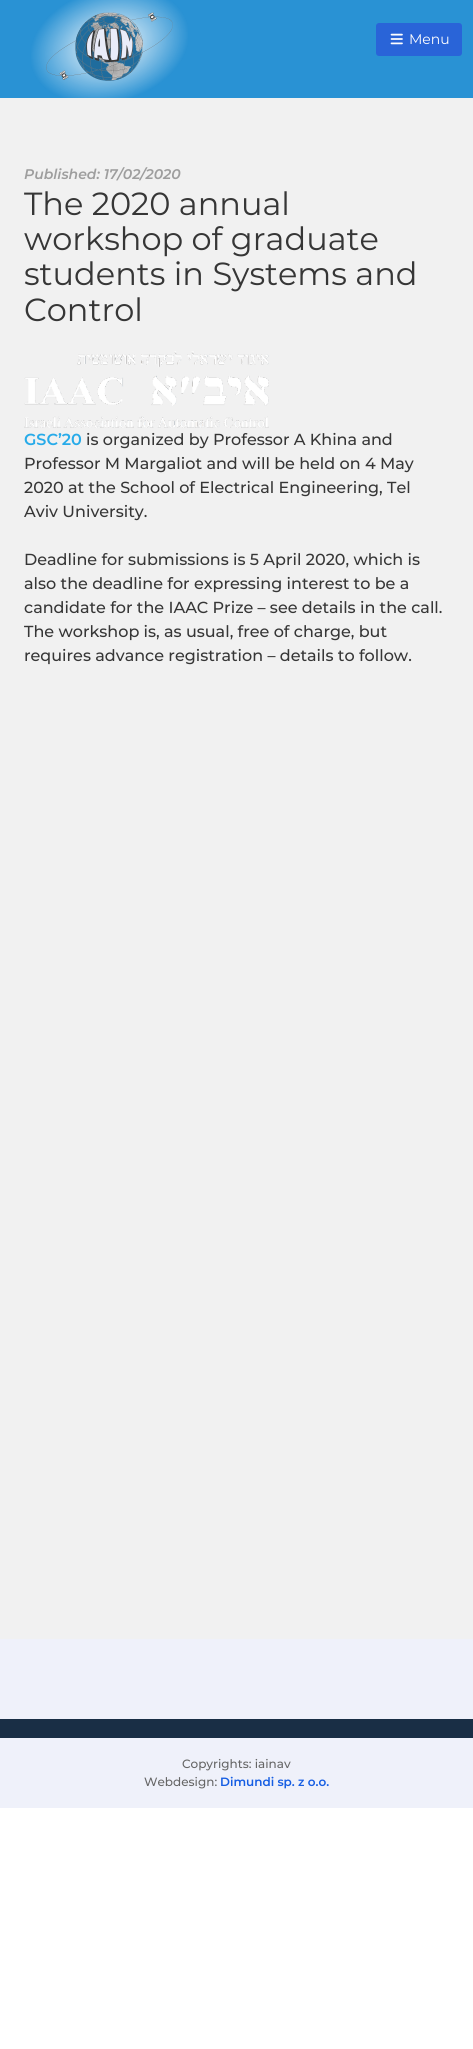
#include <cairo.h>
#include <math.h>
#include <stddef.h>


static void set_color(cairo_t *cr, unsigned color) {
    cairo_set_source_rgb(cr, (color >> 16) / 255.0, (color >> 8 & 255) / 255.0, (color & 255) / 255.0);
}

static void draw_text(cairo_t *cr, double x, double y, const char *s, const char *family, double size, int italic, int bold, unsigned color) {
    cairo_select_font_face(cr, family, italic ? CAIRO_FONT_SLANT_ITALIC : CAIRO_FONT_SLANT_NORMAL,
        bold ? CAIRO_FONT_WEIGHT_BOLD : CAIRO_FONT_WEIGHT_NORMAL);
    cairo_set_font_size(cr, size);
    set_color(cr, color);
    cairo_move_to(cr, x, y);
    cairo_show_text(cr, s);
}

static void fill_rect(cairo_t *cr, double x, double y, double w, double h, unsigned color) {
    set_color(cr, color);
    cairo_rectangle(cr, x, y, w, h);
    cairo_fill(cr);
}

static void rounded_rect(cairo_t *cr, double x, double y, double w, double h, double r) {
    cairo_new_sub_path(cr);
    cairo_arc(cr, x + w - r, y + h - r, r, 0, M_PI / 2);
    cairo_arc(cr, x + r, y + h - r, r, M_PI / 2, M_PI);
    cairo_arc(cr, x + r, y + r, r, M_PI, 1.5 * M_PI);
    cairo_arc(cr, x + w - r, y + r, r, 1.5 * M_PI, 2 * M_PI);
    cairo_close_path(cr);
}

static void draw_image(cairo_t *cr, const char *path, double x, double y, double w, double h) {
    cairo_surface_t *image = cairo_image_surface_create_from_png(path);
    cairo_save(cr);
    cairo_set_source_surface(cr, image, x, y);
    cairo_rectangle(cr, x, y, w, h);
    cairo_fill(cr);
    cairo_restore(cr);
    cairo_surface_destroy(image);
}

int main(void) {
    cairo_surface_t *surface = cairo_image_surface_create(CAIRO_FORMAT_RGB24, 473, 2049);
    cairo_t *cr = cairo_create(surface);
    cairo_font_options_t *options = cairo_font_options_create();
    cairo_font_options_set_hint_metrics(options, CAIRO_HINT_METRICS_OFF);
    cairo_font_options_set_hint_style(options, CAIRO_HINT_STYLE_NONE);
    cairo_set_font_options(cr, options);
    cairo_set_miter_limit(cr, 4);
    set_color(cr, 0xFFFFFF);
    cairo_paint(cr);
    fill_rect(cr, 0, 98, 473, 1541, 0xF1F1F1);
    fill_rect(cr, 0, 0, 473, 98, 0x2992D4);
    draw_image(cr, "assets/img1.png", 31, 0, 157, 98);
    set_color(cr, 0x2964D8);
    rounded_rect(cr, 376, 23, 86, 33, 3);
    cairo_fill(cr);
    draw_image(cr, "assets/img2.png", 390, 33, 13, 12);
    draw_text(cr, 409, 44, "Menu", "Montserrat", 14, 0, 0, 0xFFFFFF);
    draw_text(cr, 24, 179, "Published: 17/02/2020", "Montserrat SemiBold", 14, 1, 0, 0x9E9E9E);
    draw_text(cr, 24, 215, "The 2020 annual", "Montserrat", 32, 0, 0, 0x363636);
    draw_text(cr, 24, 250, "workshop of graduate", "Montserrat", 32, 0, 0, 0x363636);
    draw_text(cr, 24, 285, "students in Systems and", "Montserrat", 32, 0, 0, 0x363636);
    draw_text(cr, 24, 321, "Control", "Montserrat", 32, 0, 0, 0x363636);
    draw_image(cr, "assets/img3.png", 24, 351, 245, 77);
    draw_text(cr, 24, 445, "GSC’20", "Montserrat SemiBold", 16, 0, 0, 0x28ABE9);
    draw_text(cr, 86, 445, "is organized by Professor A Khina and", "Montserrat Medium", 16, 0, 0, 0x363636);
    draw_text(cr, 24, 469, "Professor M Margaliot and will be held on 4 May", "Montserrat Medium", 16, 0, 0, 0x363636);
    draw_text(cr, 24, 493, "2020 at the School of Electrical Engineering, Tel", "Montserrat Medium", 16, 0, 0, 0x363636);
    draw_text(cr, 24, 517, "Aviv University.", "Montserrat Medium", 16, 0, 0, 0x363636);
    draw_text(cr, 24, 565, "Deadline for submissions is 5 April 2020, which is", "Montserrat Medium", 16, 0, 0, 0x363636);
    draw_text(cr, 24, 589, "also the deadline for expressing interest to be a", "Montserrat Medium", 16, 0, 0, 0x363636);
    draw_text(cr, 24, 613, "candidate for the IAAC Prize – see details in the call.", "Montserrat Medium", 16, 0, 0, 0x363636);
    draw_text(cr, 24, 637, "The workshop is, as usual, free of charge, but", "Montserrat Medium", 16, 0, 0, 0x363636);
    draw_text(cr, 24, 661, "requires advance registration – details to follow.", "Montserrat Medium", 16, 0, 0, 0x363636);
    fill_rect(cr, 0, 1639, 473, 169, 0xEFF1FA);
    fill_rect(cr, 0, 1719, 473, 19, 0x192E45);
    draw_text(cr, 182, 1768, "Copyrights: iainav", "Montserrat Medium", 12, 0, 0, 0x666666);
    draw_text(cr, 144, 1786, "Webdesign:", "Montserrat Medium", 12, 0, 0, 0x666666);
    draw_text(cr, 220, 1786, "Dimundi sp. z o.o.", "Montserrat SemiBold", 12, 0, 0, 0x165EE3);
    cairo_surface_write_to_png(surface, "output.png");
    cairo_font_options_destroy(options);
    cairo_destroy(cr);
    cairo_surface_destroy(surface);
    return 0;
}
